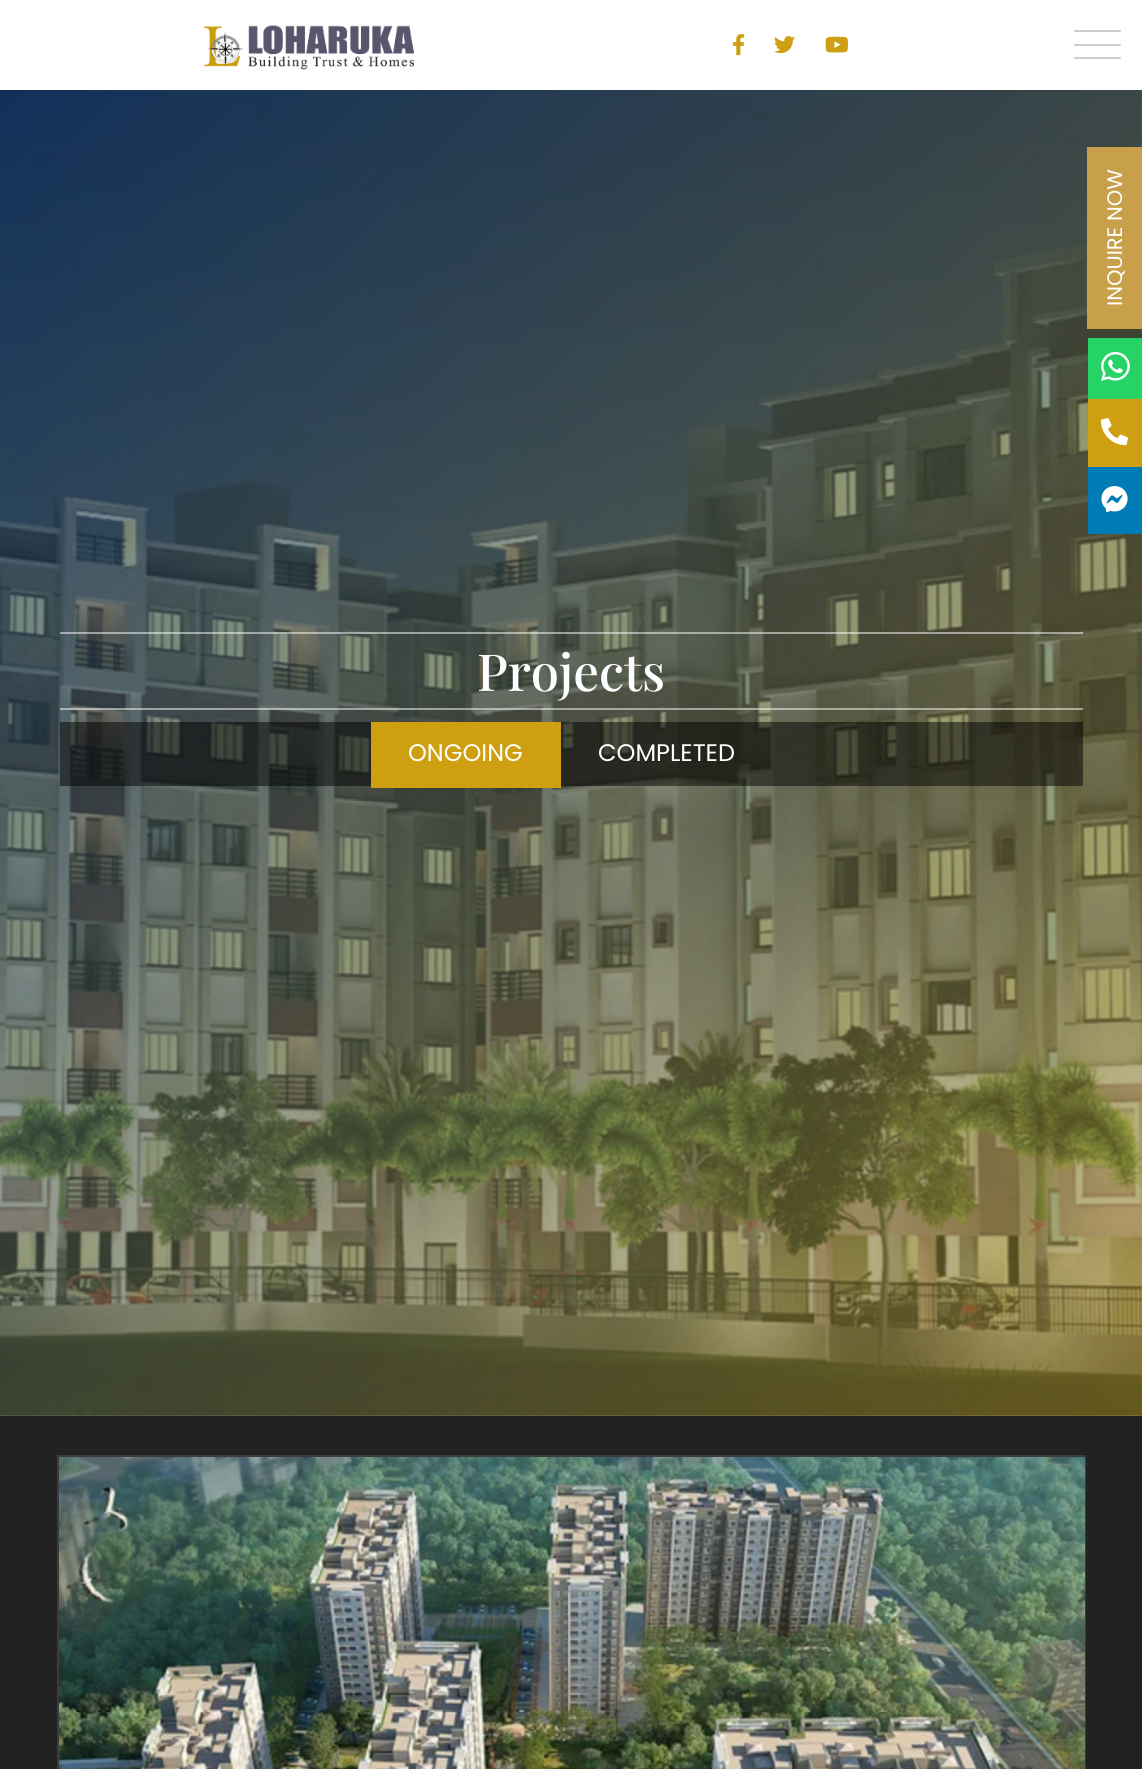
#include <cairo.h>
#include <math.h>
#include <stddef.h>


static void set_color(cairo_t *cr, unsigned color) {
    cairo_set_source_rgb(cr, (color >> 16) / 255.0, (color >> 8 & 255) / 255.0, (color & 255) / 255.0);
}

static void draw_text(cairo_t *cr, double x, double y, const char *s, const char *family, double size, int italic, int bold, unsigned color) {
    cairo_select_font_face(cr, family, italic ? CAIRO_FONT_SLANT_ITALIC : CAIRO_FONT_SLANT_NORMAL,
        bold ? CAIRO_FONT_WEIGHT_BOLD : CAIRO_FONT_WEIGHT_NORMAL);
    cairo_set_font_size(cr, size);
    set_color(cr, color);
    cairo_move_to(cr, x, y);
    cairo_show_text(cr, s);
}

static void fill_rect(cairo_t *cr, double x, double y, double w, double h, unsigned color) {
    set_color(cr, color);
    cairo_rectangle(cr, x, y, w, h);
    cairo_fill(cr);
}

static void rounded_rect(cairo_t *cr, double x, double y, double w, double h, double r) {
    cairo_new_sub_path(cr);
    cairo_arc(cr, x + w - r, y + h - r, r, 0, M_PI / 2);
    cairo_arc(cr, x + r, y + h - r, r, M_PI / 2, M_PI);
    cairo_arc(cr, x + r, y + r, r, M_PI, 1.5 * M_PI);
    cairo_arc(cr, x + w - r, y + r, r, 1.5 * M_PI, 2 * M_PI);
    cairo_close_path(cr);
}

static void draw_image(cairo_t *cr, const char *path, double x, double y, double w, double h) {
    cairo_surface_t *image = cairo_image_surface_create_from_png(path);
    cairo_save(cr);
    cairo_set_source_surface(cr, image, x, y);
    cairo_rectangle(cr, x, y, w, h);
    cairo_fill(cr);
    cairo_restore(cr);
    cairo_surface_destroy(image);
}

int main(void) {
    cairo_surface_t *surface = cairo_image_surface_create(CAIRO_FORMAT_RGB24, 1142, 1769);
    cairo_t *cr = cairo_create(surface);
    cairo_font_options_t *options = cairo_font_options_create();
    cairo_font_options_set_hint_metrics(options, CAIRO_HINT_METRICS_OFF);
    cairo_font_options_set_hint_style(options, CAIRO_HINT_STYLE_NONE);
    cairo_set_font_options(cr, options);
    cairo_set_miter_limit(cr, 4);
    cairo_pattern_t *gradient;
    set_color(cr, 0xFFFFFF);
    cairo_paint(cr);
    draw_image(cr, "assets/img1.png", 204, 25, 210, 45);
    draw_image(cr, "assets/img2.png", 732, 34, 13, 22);
    draw_image(cr, "assets/img3.png", 774, 36, 21, 18);
    draw_image(cr, "assets/img4.png", 825, 36, 23, 17);
    set_color(cr, 0xCDCDCD);
    rounded_rect(cr, 1074, 30, 47, 2, 1);
    cairo_fill(cr);
    rounded_rect(cr, 1074, 44, 47, 2, 1);
    cairo_fill(cr);
    rounded_rect(cr, 1074, 57, 47, 2, 1);
    cairo_fill(cr);
    draw_image(cr, "assets/img8.png", 0, 90, 1142, 1326);
    gradient = cairo_pattern_create_linear(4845, 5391, -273, 273);
    cairo_pattern_add_color_stop_rgba(gradient, 0, 0.804, 0.624, 0.067, 0.6);
    cairo_pattern_add_color_stop_rgba(gradient, 0.33, 0, 0.204, 0.443, 0.6);
    cairo_pattern_add_color_stop_rgba(gradient, 0.67, 0.804, 0.624, 0.067, 0.6);
    cairo_pattern_add_color_stop_rgba(gradient, 1, 0, 0.204, 0.443, 0.6);
    cairo_set_source(cr, gradient);
    cairo_pattern_destroy(gradient);
    cairo_rectangle(cr, 0, 90, 1142, 1326);
    cairo_fill(cr);
    cairo_set_source_rgba(cr, 0.843, 0.667, 0.302, 0.9);
    cairo_rectangle(cr, 1087, 147, 55, 182);
    cairo_fill(cr);
    cairo_save(cr);
    cairo_translate(cr, 1122, 306);
    cairo_rotate(cr, -90 * M_PI / 180);
    draw_text(cr, 0, 0, "INQUIRE NOW", "Poppins", 21, 0, 0, 0xFFFFFF);
    cairo_restore(cr);
    fill_rect(cr, 1088, 338, 54, 61, 0x25D366);
    draw_image(cr, "assets/img5.png", 1101, 351, 29, 30);
    fill_rect(cr, 1088, 399, 54, 68, 0xCD9F11);
    draw_image(cr, "assets/img6.png", 1101, 418, 27, 28);
    fill_rect(cr, 1088, 467, 54, 67, 0x007BB5);
    draw_image(cr, "assets/img7.png", 1101, 486, 27, 27);
    cairo_set_source_rgba(cr, 1, 1, 1, 0.5);
    cairo_rectangle(cr, 60, 632, 1023, 2);
    cairo_fill(cr);
    cairo_rectangle(cr, 60, 708, 1023, 2);
    cairo_fill(cr);
    draw_text(cr, 477, 691, "Projects", "Playfair Display Medium", 51, 0, 0, 0xFFFFFF);
    cairo_set_source_rgba(cr, 0, 0, 0, 0.5);
    cairo_rectangle(cr, 60, 722, 1023, 64);
    cairo_fill(cr);
    fill_rect(cr, 371, 722, 190, 66, 0xCD9F11);
    draw_text(cr, 408, 761, "ONGOING", "Poppins", 24, 0, 0, 0xFFFFFF);
    draw_text(cr, 598, 761, "COMPLETED", "Poppins", 24, 0, 0, 0xFFFFFF);
    fill_rect(cr, 0, 1416, 1142, 353, 0x222222);
    cairo_rectangle(cr, 58, 1456, 1027, 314);
    set_color(cr, 0x3C3C3C);
    cairo_stroke(cr);
    draw_image(cr, "assets/img9.png", 59, 1457, 1026, 312);
    cairo_surface_write_to_png(surface, "output.png");
    cairo_font_options_destroy(options);
    cairo_destroy(cr);
    cairo_surface_destroy(surface);
    return 0;
}
